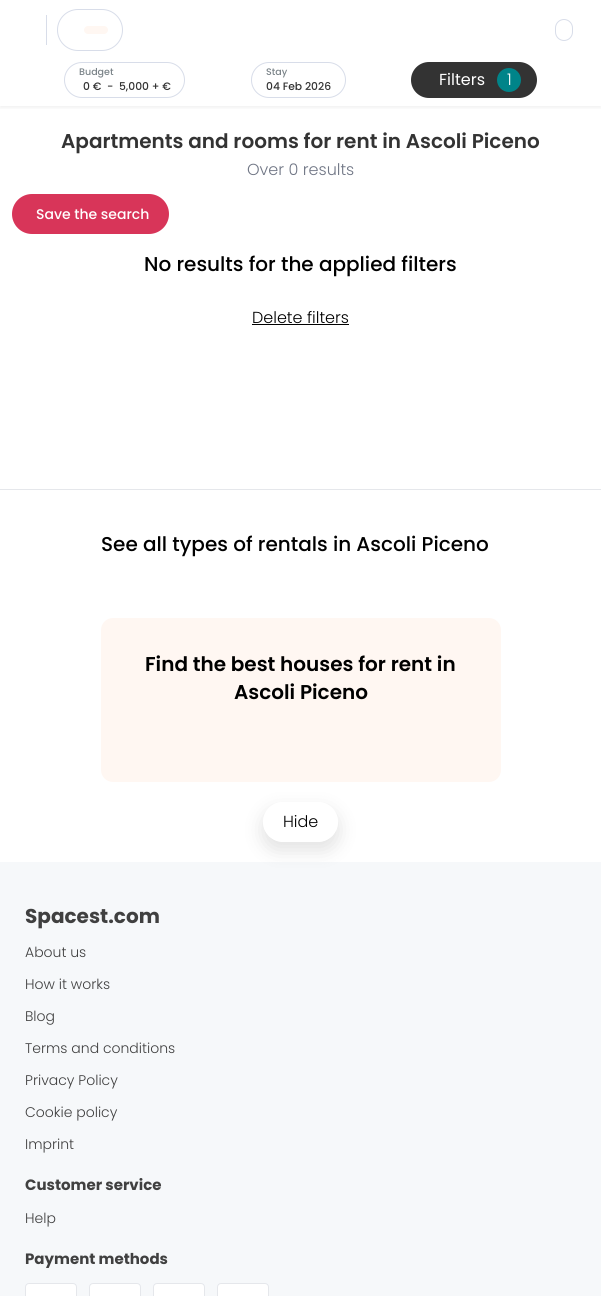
#include <cairo.h>
#include <math.h>
#include <stddef.h>


static void set_color(cairo_t *cr, unsigned color) {
    cairo_set_source_rgb(cr, (color >> 16) / 255.0, (color >> 8 & 255) / 255.0, (color & 255) / 255.0);
}

static void draw_text(cairo_t *cr, double x, double y, const char *s, const char *family, double size, int italic, int bold, unsigned color) {
    cairo_select_font_face(cr, family, italic ? CAIRO_FONT_SLANT_ITALIC : CAIRO_FONT_SLANT_NORMAL,
        bold ? CAIRO_FONT_WEIGHT_BOLD : CAIRO_FONT_WEIGHT_NORMAL);
    cairo_set_font_size(cr, size);
    set_color(cr, color);
    cairo_move_to(cr, x, y);
    cairo_show_text(cr, s);
}

static void fill_rect(cairo_t *cr, double x, double y, double w, double h, unsigned color) {
    set_color(cr, color);
    cairo_rectangle(cr, x, y, w, h);
    cairo_fill(cr);
}

static void rounded_rect(cairo_t *cr, double x, double y, double w, double h, double r) {
    cairo_new_sub_path(cr);
    cairo_arc(cr, x + w - r, y + h - r, r, 0, M_PI / 2);
    cairo_arc(cr, x + r, y + h - r, r, M_PI / 2, M_PI);
    cairo_arc(cr, x + r, y + r, r, M_PI, 1.5 * M_PI);
    cairo_arc(cr, x + w - r, y + r, r, 1.5 * M_PI, 2 * M_PI);
    cairo_close_path(cr);
}

static void draw_shadow(cairo_t *cr, double x, double y, double w, double h, double r, double blur, double alpha) {
    cairo_push_group_with_content(cr, CAIRO_CONTENT_ALPHA);
    cairo_set_operator(cr, CAIRO_OPERATOR_SOURCE);
    for (int i = 15; i >= -15 && fmin(w, h) + blur * i / 3 > 0; i -= 2) {
        double e = blur * i / 6;
        cairo_set_source_rgba(cr, 0, 0, 0, alpha * erfc((i - 1) / 8.5) / 2);
        rounded_rect(cr, x - e, y - e, w + 2 * e, h + 2 * e, fmax(0, fmin(r + e + blur * .6, fmin(w, h) / 2 + e)));
        cairo_fill(cr);
    }
    cairo_pattern_t *soft = cairo_pop_group(cr);
    cairo_mask(cr, soft);
    cairo_pattern_destroy(soft);
}

int main(void) {
    cairo_surface_t *surface = cairo_image_surface_create(CAIRO_FORMAT_RGB24, 601, 1296);
    cairo_t *cr = cairo_create(surface);
    cairo_font_options_t *options = cairo_font_options_create();
    cairo_font_options_set_hint_metrics(options, CAIRO_HINT_METRICS_OFF);
    cairo_font_options_set_hint_style(options, CAIRO_HINT_STYLE_NONE);
    cairo_set_font_options(cr, options);
    cairo_set_miter_limit(cr, 4);
    set_color(cr, 0xFFFFFF);
    cairo_paint(cr);
    fill_rect(cr, 46, 15, 1, 30, 0xD8DDE9);
    rounded_rect(cr, 57.5, 9.5, 65, 41, 20.5);
    cairo_set_line_width(cr, 1);
    cairo_stroke(cr);
    set_color(cr, 0xFFF7F2);
    rounded_rect(cr, 84, 26, 24, 8, 4);
    cairo_fill(cr);
    rounded_rect(cr, 555.5, 19.5, 17, 21, 8.5);
    set_color(cr, 0xD8DDE9);
    cairo_stroke(cr);
    cairo_save(cr);
    cairo_rectangle(cr, 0, 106, 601, 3);
    cairo_clip(cr);
    set_color(cr, 0x000000);
    draw_shadow(cr, 0, 62, 601, 46, 0, 2, 0.06);
    cairo_restore(cr);
    rounded_rect(cr, 64.5, 62.5, 120, 35, 17.5);
    cairo_stroke(cr);
    draw_text(cr, 79, 75, "Budget", "Poppins Medium", 9.5, 0, 0, 0x7A8388);
    draw_text(cr, 83, 90, "0 €", "Poppins Medium", 10.75, 0, 0, 0x333333);
    draw_text(cr, 107, 90, "-", "Poppins Medium", 10.75, 0, 0, 0x333333);
    draw_text(cr, 119, 90, "5,000 + €", "Poppins Medium", 10.75, 0, 0, 0x333333);
    rounded_rect(cr, 251.5, 62.5, 94, 35, 17.5);
    set_color(cr, 0xD8DDE9);
    cairo_stroke(cr);
    draw_text(cr, 266, 75, "Stay", "Poppins Medium", 9.5, 0, 0, 0x7A8388);
    draw_text(cr, 266, 90, "04 Feb 2026", "Poppins Medium", 10.75, 0, 0, 0x333333);
    rounded_rect(cr, 411, 62, 126, 36, 18);
    cairo_fill(cr);
    draw_text(cr, 439, 85, "Filters", "Poppins", 16, 0, 0, 0xFFFFFF);
    set_color(cr, 0x008489);
    cairo_new_path(cr);
    cairo_arc(cr, 509, 80, 12, 0, 2 * M_PI);
    cairo_fill(cr);
    draw_text(cr, 507, 85, "1", "Poppins Light", 16, 0, 0, 0xFFFFFF);
    fill_rect(cr, 0, 489, 601, 1, 0xE5E7EB);
    draw_text(cr, 61, 148, "Apartments and rooms for rent in Ascoli Piceno", "Poppins SemiBold", 20, 0, 0, 0x333333);
    draw_text(cr, 247, 175, "Over 0 results", "Poppins Light", 16, 0, 0, 0x707685);
    set_color(cr, 0xD83559);
    rounded_rect(cr, 12, 194, 157, 40, 20);
    cairo_fill(cr);
    draw_text(cr, 36, 219, "Save the search", "Poppins Medium", 14, 0, 0, 0xFFFFFF);
    draw_text(cr, 144, 271, "No results for the applied filters", "Poppins Medium", 20, 0, 0, 0x000000);
    draw_text(cr, 252, 323, "Delete filters", "Poppins Light", 16, 0, 0, 0x000000);
    fill_rect(cr, 252, 324, 97, 1, 0x000000);
    draw_text(cr, 101, 551, "See all types of rentals in Ascoli Piceno", "Poppins Medium", 20, 0, 0, 0x000000);
    set_color(cr, 0xFFF7F2);
    rounded_rect(cr, 101, 618, 400, 164, 12);
    cairo_fill(cr);
    draw_text(cr, 145, 671, "Find the best houses for rent in", "Poppins SemiBold", 20, 0, 0, 0x000000);
    draw_text(cr, 234, 699, "Ascoli Piceno", "Poppins SemiBold", 20, 0, 0, 0x000000);
    fill_rect(cr, 0, 862, 601, 434, 0xF6F8FA);
    cairo_save(cr);
    cairo_set_fill_rule(cr, CAIRO_FILL_RULE_EVEN_ODD);
    cairo_new_path(cr);
    cairo_move_to(cr, 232, 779);
    cairo_line_to(cr, 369, 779);
    cairo_line_to(cr, 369, 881);
    cairo_line_to(cr, 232, 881);
    cairo_close_path(cr);
    cairo_move_to(cr, 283, 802);
    cairo_line_to(cr, 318, 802);
    cairo_curve_to(cr, 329, 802, 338, 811, 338, 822);
    cairo_curve_to(cr, 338, 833, 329, 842, 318, 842);
    cairo_line_to(cr, 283, 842);
    cairo_curve_to(cr, 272, 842, 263, 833, 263, 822);
    cairo_curve_to(cr, 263, 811, 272, 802, 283, 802);
    cairo_close_path(cr);
    cairo_clip(cr);
    set_color(cr, 0x000000);
    draw_shadow(cr, 263, 810, 75, 40, 20, 10, 0.12);
    cairo_restore(cr);
    draw_text(cr, 283, 827, "Hide", "Poppins Light", 16, 0, 0, 0x000000);
    draw_text(cr, 25, 923, "Spacest.com", "Poppins", 20, 0, 1, 0x404040);
    draw_text(cr, 25, 957, "About us", "Poppins Light", 14, 0, 0, 0x404040);
    draw_text(cr, 25, 989, "How it works", "Poppins Light", 14, 0, 0, 0x404040);
    draw_text(cr, 25, 1021, "Blog", "Poppins Light", 14, 0, 0, 0x404040);
    draw_text(cr, 25, 1053, "Terms and conditions", "Poppins Light", 14, 0, 0, 0x404040);
    draw_text(cr, 25, 1085, "Privacy Policy", "Poppins Light", 14, 0, 0, 0x404040);
    draw_text(cr, 25, 1117, "Cookie policy", "Poppins Light", 14, 0, 0, 0x404040);
    draw_text(cr, 25, 1149, "Imprint", "Poppins Light", 14, 0, 0, 0x404040);
    draw_text(cr, 25, 1190, "Customer service", "Poppins", 15, 0, 1, 0x404040);
    draw_text(cr, 25, 1223, "Help", "Poppins Light", 14, 0, 0, 0x404040);
    draw_text(cr, 25, 1264, "Payment methods", "Poppins", 15, 0, 1, 0x404040);
    set_color(cr, 0xFFFFFF);
    rounded_rect(cr, 25.5, 1283.5, 51, 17, 3.5);
    cairo_fill_preserve(cr);
    set_color(cr, 0xE5E7EB);
    cairo_stroke(cr);
    set_color(cr, 0xFFFFFF);
    rounded_rect(cr, 89.5, 1283.5, 51, 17, 3.5);
    cairo_fill_preserve(cr);
    set_color(cr, 0xE5E7EB);
    cairo_stroke(cr);
    set_color(cr, 0xFFFFFF);
    rounded_rect(cr, 153.5, 1283.5, 51, 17, 3.5);
    cairo_fill_preserve(cr);
    set_color(cr, 0xE5E7EB);
    cairo_stroke(cr);
    set_color(cr, 0xFFFFFF);
    rounded_rect(cr, 217.5, 1283.5, 51, 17, 3.5);
    cairo_fill_preserve(cr);
    set_color(cr, 0xE5E7EB);
    cairo_stroke(cr);
    cairo_surface_write_to_png(surface, "output.png");
    cairo_font_options_destroy(options);
    cairo_destroy(cr);
    cairo_surface_destroy(surface);
    return 0;
}
